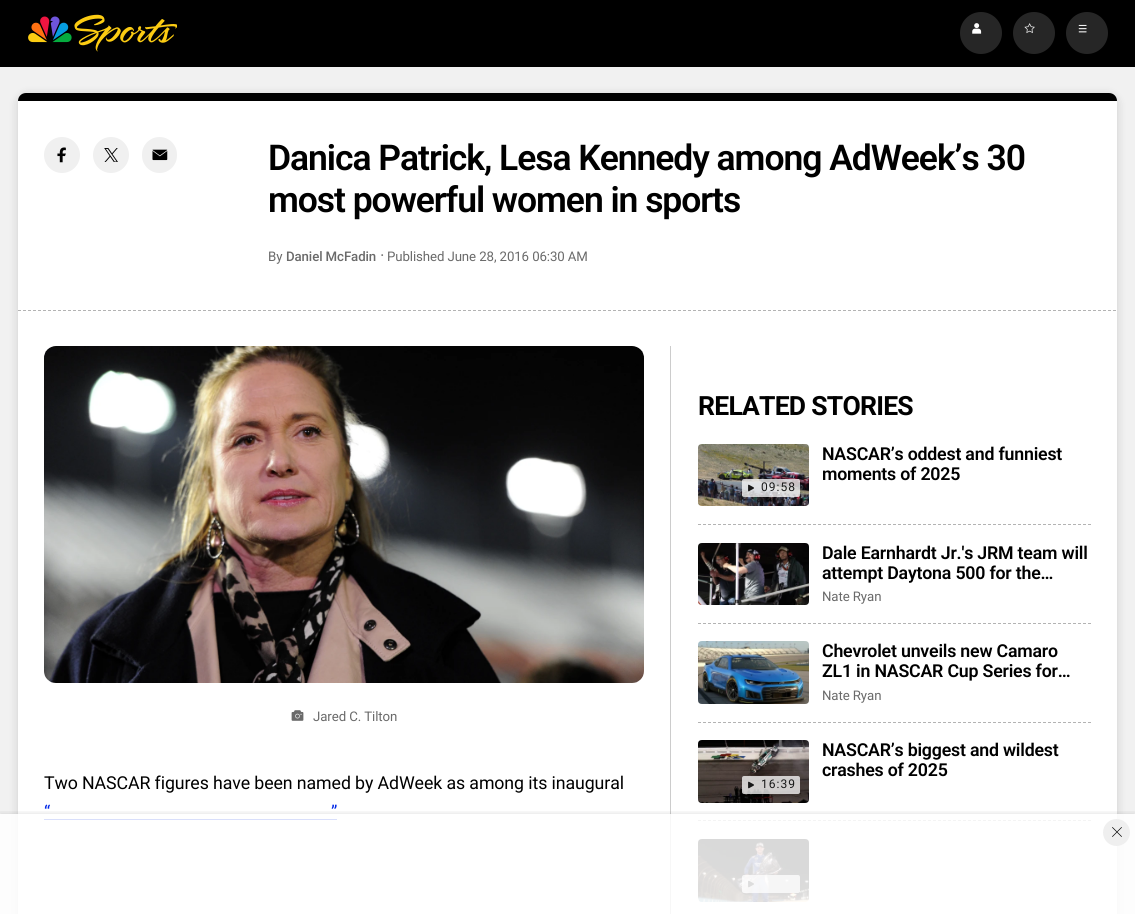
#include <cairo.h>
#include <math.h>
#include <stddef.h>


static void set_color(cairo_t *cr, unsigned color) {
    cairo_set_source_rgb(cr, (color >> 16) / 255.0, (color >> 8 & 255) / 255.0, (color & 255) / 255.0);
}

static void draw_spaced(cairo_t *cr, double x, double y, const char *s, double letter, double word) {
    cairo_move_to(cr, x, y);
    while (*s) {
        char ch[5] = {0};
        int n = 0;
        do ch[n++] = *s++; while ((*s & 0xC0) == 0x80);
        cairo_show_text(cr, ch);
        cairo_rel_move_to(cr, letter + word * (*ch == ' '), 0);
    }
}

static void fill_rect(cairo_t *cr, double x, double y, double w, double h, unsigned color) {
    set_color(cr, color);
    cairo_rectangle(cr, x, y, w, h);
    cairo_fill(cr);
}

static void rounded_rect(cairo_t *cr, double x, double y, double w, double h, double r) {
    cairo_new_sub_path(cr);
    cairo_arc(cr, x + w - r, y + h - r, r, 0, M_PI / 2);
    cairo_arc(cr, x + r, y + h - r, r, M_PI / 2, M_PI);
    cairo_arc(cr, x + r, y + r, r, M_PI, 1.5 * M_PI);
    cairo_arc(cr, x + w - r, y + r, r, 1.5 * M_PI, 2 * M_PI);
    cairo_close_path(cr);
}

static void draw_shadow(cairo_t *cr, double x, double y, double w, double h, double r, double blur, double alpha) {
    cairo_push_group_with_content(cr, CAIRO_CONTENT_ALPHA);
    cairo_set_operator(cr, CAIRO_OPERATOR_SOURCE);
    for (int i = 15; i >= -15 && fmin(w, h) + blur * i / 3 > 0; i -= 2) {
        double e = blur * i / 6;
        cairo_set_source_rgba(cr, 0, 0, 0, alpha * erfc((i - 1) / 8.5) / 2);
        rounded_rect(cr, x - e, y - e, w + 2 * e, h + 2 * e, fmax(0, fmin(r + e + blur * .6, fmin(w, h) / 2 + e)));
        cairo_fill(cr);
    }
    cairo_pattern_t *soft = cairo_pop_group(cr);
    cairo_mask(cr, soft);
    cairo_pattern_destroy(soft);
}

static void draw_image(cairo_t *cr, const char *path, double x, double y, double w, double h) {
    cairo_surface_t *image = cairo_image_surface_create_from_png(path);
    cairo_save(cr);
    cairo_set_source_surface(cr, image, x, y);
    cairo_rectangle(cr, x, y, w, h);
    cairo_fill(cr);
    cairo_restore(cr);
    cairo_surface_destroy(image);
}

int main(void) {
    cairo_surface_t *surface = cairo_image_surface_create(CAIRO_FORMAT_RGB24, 1135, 914);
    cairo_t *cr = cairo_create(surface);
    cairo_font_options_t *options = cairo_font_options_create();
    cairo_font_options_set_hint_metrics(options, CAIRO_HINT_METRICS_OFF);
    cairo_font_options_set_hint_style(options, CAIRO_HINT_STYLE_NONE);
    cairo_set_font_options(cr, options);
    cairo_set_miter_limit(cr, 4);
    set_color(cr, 0xF1F1F1);
    cairo_paint(cr);
    fill_rect(cr, 0, 0, 1135, 67, 0x000000);
    draw_image(cr, "assets/img1.png", 28, 14, 149, 38);
    set_color(cr, 0x262626);
    cairo_arc(cr, 981, 33, 21, 0, 2 * M_PI);
    cairo_fill(cr);
    draw_image(cr, "assets/img2.png", 972, 23, 10, 11);
    cairo_arc(cr, 1034, 33, 21, 0, 2 * M_PI);
    cairo_fill(cr);
    draw_image(cr, "assets/img3.png", 1024, 23, 11, 11);
    cairo_arc(cr, 1087, 33, 21, 0, 2 * M_PI);
    cairo_fill(cr);
    draw_image(cr, "assets/img4.png", 1078, 24, 9, 9);
    set_color(cr, 0x000000);
    draw_shadow(cr, 18, 95, 1099, 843, 9, 5, 0.15);
    set_color(cr, 0xFFFFFF);
    rounded_rect(cr, 18, 93, 1099, 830, 9);
    cairo_fill(cr);
    set_color(cr, 0x000000);
    cairo_new_path(cr);
    cairo_move_to(cr, 26, 93);
    cairo_line_to(cr, 1109, 93);
    cairo_curve_to(cr, 1113.5, 93, 1117, 96.5, 1117, 101);
    cairo_line_to(cr, 18, 101);
    cairo_curve_to(cr, 18, 96.5, 21.5, 93, 26, 93);
    cairo_close_path(cr);
    cairo_fill(cr);
    cairo_new_path(cr);
    cairo_move_to(cr, 18, 310.5);
    cairo_line_to(cr, 1117, 310.5);
    set_color(cr, 0xB3B3B3);
    cairo_set_line_width(cr, 1);
    cairo_set_dash(cr, (double[]){3, 2}, 2, 0);
    cairo_stroke(cr);
    set_color(cr, 0xF0F0F0);
    cairo_arc(cr, 62, 155, 18, 0, 2 * M_PI);
    cairo_fill(cr);
    draw_image(cr, "assets/img5.png", 57, 147, 9, 16);
    cairo_arc(cr, 111, 155, 18, 0, 2 * M_PI);
    cairo_fill(cr);
    draw_image(cr, "assets/img6.png", 104, 148, 14, 14);
    rounded_rect(cr, 142, 137, 35, 36, 17.5);
    cairo_fill(cr);
    draw_image(cr, "assets/img7.png", 152, 149, 16, 12);
    cairo_select_font_face(cr, "Roboto SemiBold", CAIRO_FONT_SLANT_NORMAL, CAIRO_FONT_WEIGHT_NORMAL);
    cairo_set_font_size(cr, 35.5);
    set_color(cr, 0x000000);
    draw_spaced(cr, 268, 170, "Danica Patrick, Lesa Kennedy among AdWeek’s 30", -1.05, 0);
    draw_spaced(cr, 268, 212, "most powerful women in sports", -1.05, 0);
    cairo_select_font_face(cr, "Roboto", CAIRO_FONT_SLANT_NORMAL, CAIRO_FONT_WEIGHT_NORMAL);
    cairo_set_font_size(cr, 13.25);
    set_color(cr, 0x6A6A6A);
    draw_spaced(cr, 268, 261, "By", -0.1, 0);
    cairo_select_font_face(cr, "Roboto Medium", CAIRO_FONT_SLANT_NORMAL, CAIRO_FONT_WEIGHT_NORMAL);
    draw_spaced(cr, 286, 261, "Daniel McFadin", -0.1, 0);
    cairo_new_path(cr);
    cairo_arc(cr, 382.2, 255.1, 0.9, 0, 2 * M_PI);
    cairo_fill(cr);
    cairo_select_font_face(cr, "Roboto", CAIRO_FONT_SLANT_NORMAL, CAIRO_FONT_WEIGHT_NORMAL);
    draw_spaced(cr, 387, 261, "Published June 28, 2016 06:30 AM", -0.1, 0);
    draw_image(cr, "assets/img8.png", 44, 346, 600, 337);
    draw_image(cr, "assets/img9.png", 291, 710, 13, 11);
    draw_spaced(cr, 313, 721, "Jared C. Tilton", -0.1, 0);
    cairo_set_font_size(cr, 17.75);
    set_color(cr, 0x000000);
    draw_spaced(cr, 44, 789, "Two NASCAR figures have been named by AdWeek as among its inaugural", -0.1, 0);
    set_color(cr, 0x0329E7);
    draw_spaced(cr, 44, 818, "“", -0.1, 0);
    fill_rect(cr, 44, 819, 293, 1, 0x0329E7);
    draw_spaced(cr, 331, 818, "”", -0.1, 0);
    fill_rect(cr, 670, 346, 1, 568, 0xCCCCCC);
    cairo_select_font_face(cr, "Roboto", CAIRO_FONT_SLANT_NORMAL, CAIRO_FONT_WEIGHT_BOLD);
    cairo_set_font_size(cr, 26.5);
    set_color(cr, 0x000000);
    draw_spaced(cr, 698, 415, "RELATED STORIES", -0.75, 0);
    cairo_select_font_face(cr, "Roboto SemiBold", CAIRO_FONT_SLANT_NORMAL, CAIRO_FONT_WEIGHT_NORMAL);
    cairo_set_font_size(cr, 17.75);
    draw_spaced(cr, 822, 460, "NASCAR’s oddest and funniest", -0.2, 0);
    draw_spaced(cr, 822, 480, "moments of 2025", -0.2, 0);
    draw_image(cr, "assets/img10.png", 698, 444, 111, 62);
    cairo_set_source_rgba(cr, 1, 1, 1, 0.75);
    rounded_rect(cr, 742, 479, 58, 18, 2);
    cairo_fill(cr);
    draw_image(cr, "assets/img11.png", 748, 484, 6, 8);
    cairo_select_font_face(cr, "Roboto", CAIRO_FONT_SLANT_NORMAL, CAIRO_FONT_WEIGHT_NORMAL);
    cairo_set_font_size(cr, 12);
    set_color(cr, 0x181818);
    draw_spaced(cr, 761, 491, "09:58", 1, 0);
    cairo_new_path(cr);
    cairo_move_to(cr, 698, 524.5);
    cairo_line_to(cr, 1091, 524.5);
    set_color(cr, 0xB3B3B3);
    cairo_stroke(cr);
    draw_image(cr, "assets/img12.png", 698, 543, 111, 62);
    cairo_select_font_face(cr, "Roboto SemiBold", CAIRO_FONT_SLANT_NORMAL, CAIRO_FONT_WEIGHT_NORMAL);
    cairo_set_font_size(cr, 17.75);
    set_color(cr, 0x000000);
    draw_spaced(cr, 822, 559, "Dale Earnhardt Jr.'s JRM team will", -0.2, 0);
    draw_spaced(cr, 822, 579, "attempt Daytona 500 for the…", -0.2, 0);
    cairo_select_font_face(cr, "Roboto", CAIRO_FONT_SLANT_NORMAL, CAIRO_FONT_WEIGHT_NORMAL);
    cairo_set_font_size(cr, 13.25);
    set_color(cr, 0x6A6A6A);
    draw_spaced(cr, 822, 601, "Nate Ryan", -0.1, 0);
    cairo_new_path(cr);
    cairo_move_to(cr, 698, 623.5);
    cairo_line_to(cr, 1091, 623.5);
    set_color(cr, 0xB3B3B3);
    cairo_stroke(cr);
    draw_image(cr, "assets/img13.png", 698, 641, 111, 63);
    cairo_select_font_face(cr, "Roboto SemiBold", CAIRO_FONT_SLANT_NORMAL, CAIRO_FONT_WEIGHT_NORMAL);
    cairo_set_font_size(cr, 17.75);
    set_color(cr, 0x000000);
    draw_spaced(cr, 822, 657, "Chevrolet unveils new Camaro", -0.2, 0);
    draw_spaced(cr, 822, 677, "ZL1 in NASCAR Cup Series for…", -0.2, 0);
    cairo_select_font_face(cr, "Roboto", CAIRO_FONT_SLANT_NORMAL, CAIRO_FONT_WEIGHT_NORMAL);
    cairo_set_font_size(cr, 13.25);
    set_color(cr, 0x6A6A6A);
    draw_spaced(cr, 822, 700, "Nate Ryan", -0.1, 0);
    cairo_new_path(cr);
    cairo_move_to(cr, 698, 722.5);
    cairo_line_to(cr, 1091, 722.5);
    set_color(cr, 0xB3B3B3);
    cairo_stroke(cr);
    cairo_select_font_face(cr, "Roboto SemiBold", CAIRO_FONT_SLANT_NORMAL, CAIRO_FONT_WEIGHT_NORMAL);
    cairo_set_font_size(cr, 17.75);
    set_color(cr, 0x000000);
    draw_spaced(cr, 822, 756, "NASCAR’s biggest and wildest", -0.2, 0);
    draw_spaced(cr, 822, 776, "crashes of 2025", -0.2, 0);
    draw_image(cr, "assets/img14.png", 698, 740, 111, 63);
    cairo_set_source_rgba(cr, 1, 1, 1, 0.75);
    rounded_rect(cr, 742, 776, 58, 18, 2);
    cairo_fill(cr);
    draw_image(cr, "assets/img15.png", 748, 781, 6, 8);
    cairo_select_font_face(cr, "Roboto", CAIRO_FONT_SLANT_NORMAL, CAIRO_FONT_WEIGHT_NORMAL);
    cairo_set_font_size(cr, 12);
    set_color(cr, 0x181818);
    draw_spaced(cr, 761, 788, "16:39", 1, 0);
    cairo_new_path(cr);
    cairo_move_to(cr, 698, 820.5);
    cairo_line_to(cr, 1091, 820.5);
    set_color(cr, 0xB3B3B3);
    cairo_stroke(cr);
    draw_image(cr, "assets/img16.png", 698, 839, 111, 63);
    cairo_set_source_rgba(cr, 1, 1, 1, 0.75);
    rounded_rect(cr, 742, 875, 58, 18, 2);
    cairo_fill(cr);
    draw_image(cr, "assets/img17.png", 748, 880, 6, 8);
    cairo_save(cr);
    cairo_rectangle(cr, 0, 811, 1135, 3);
    cairo_clip(cr);
    set_color(cr, 0x000000);
    draw_shadow(cr, 0, 812, 1135, 100, 0, 2, 0.08);
    cairo_restore(cr);
    cairo_set_source_rgba(cr, 1, 1, 1, 0.85);
    cairo_rectangle(cr, 0, 814, 1135, 100);
    cairo_fill(cr);
    set_color(cr, 0xEFEFEF);
    cairo_arc(cr, 1116.5, 832.5, 13.5, 0, 2 * M_PI);
    cairo_fill(cr);
    draw_image(cr, "assets/img18.png", 1112, 827, 10, 10);
    cairo_surface_write_to_png(surface, "output.png");
    cairo_font_options_destroy(options);
    cairo_destroy(cr);
    cairo_surface_destroy(surface);
    return 0;
}
